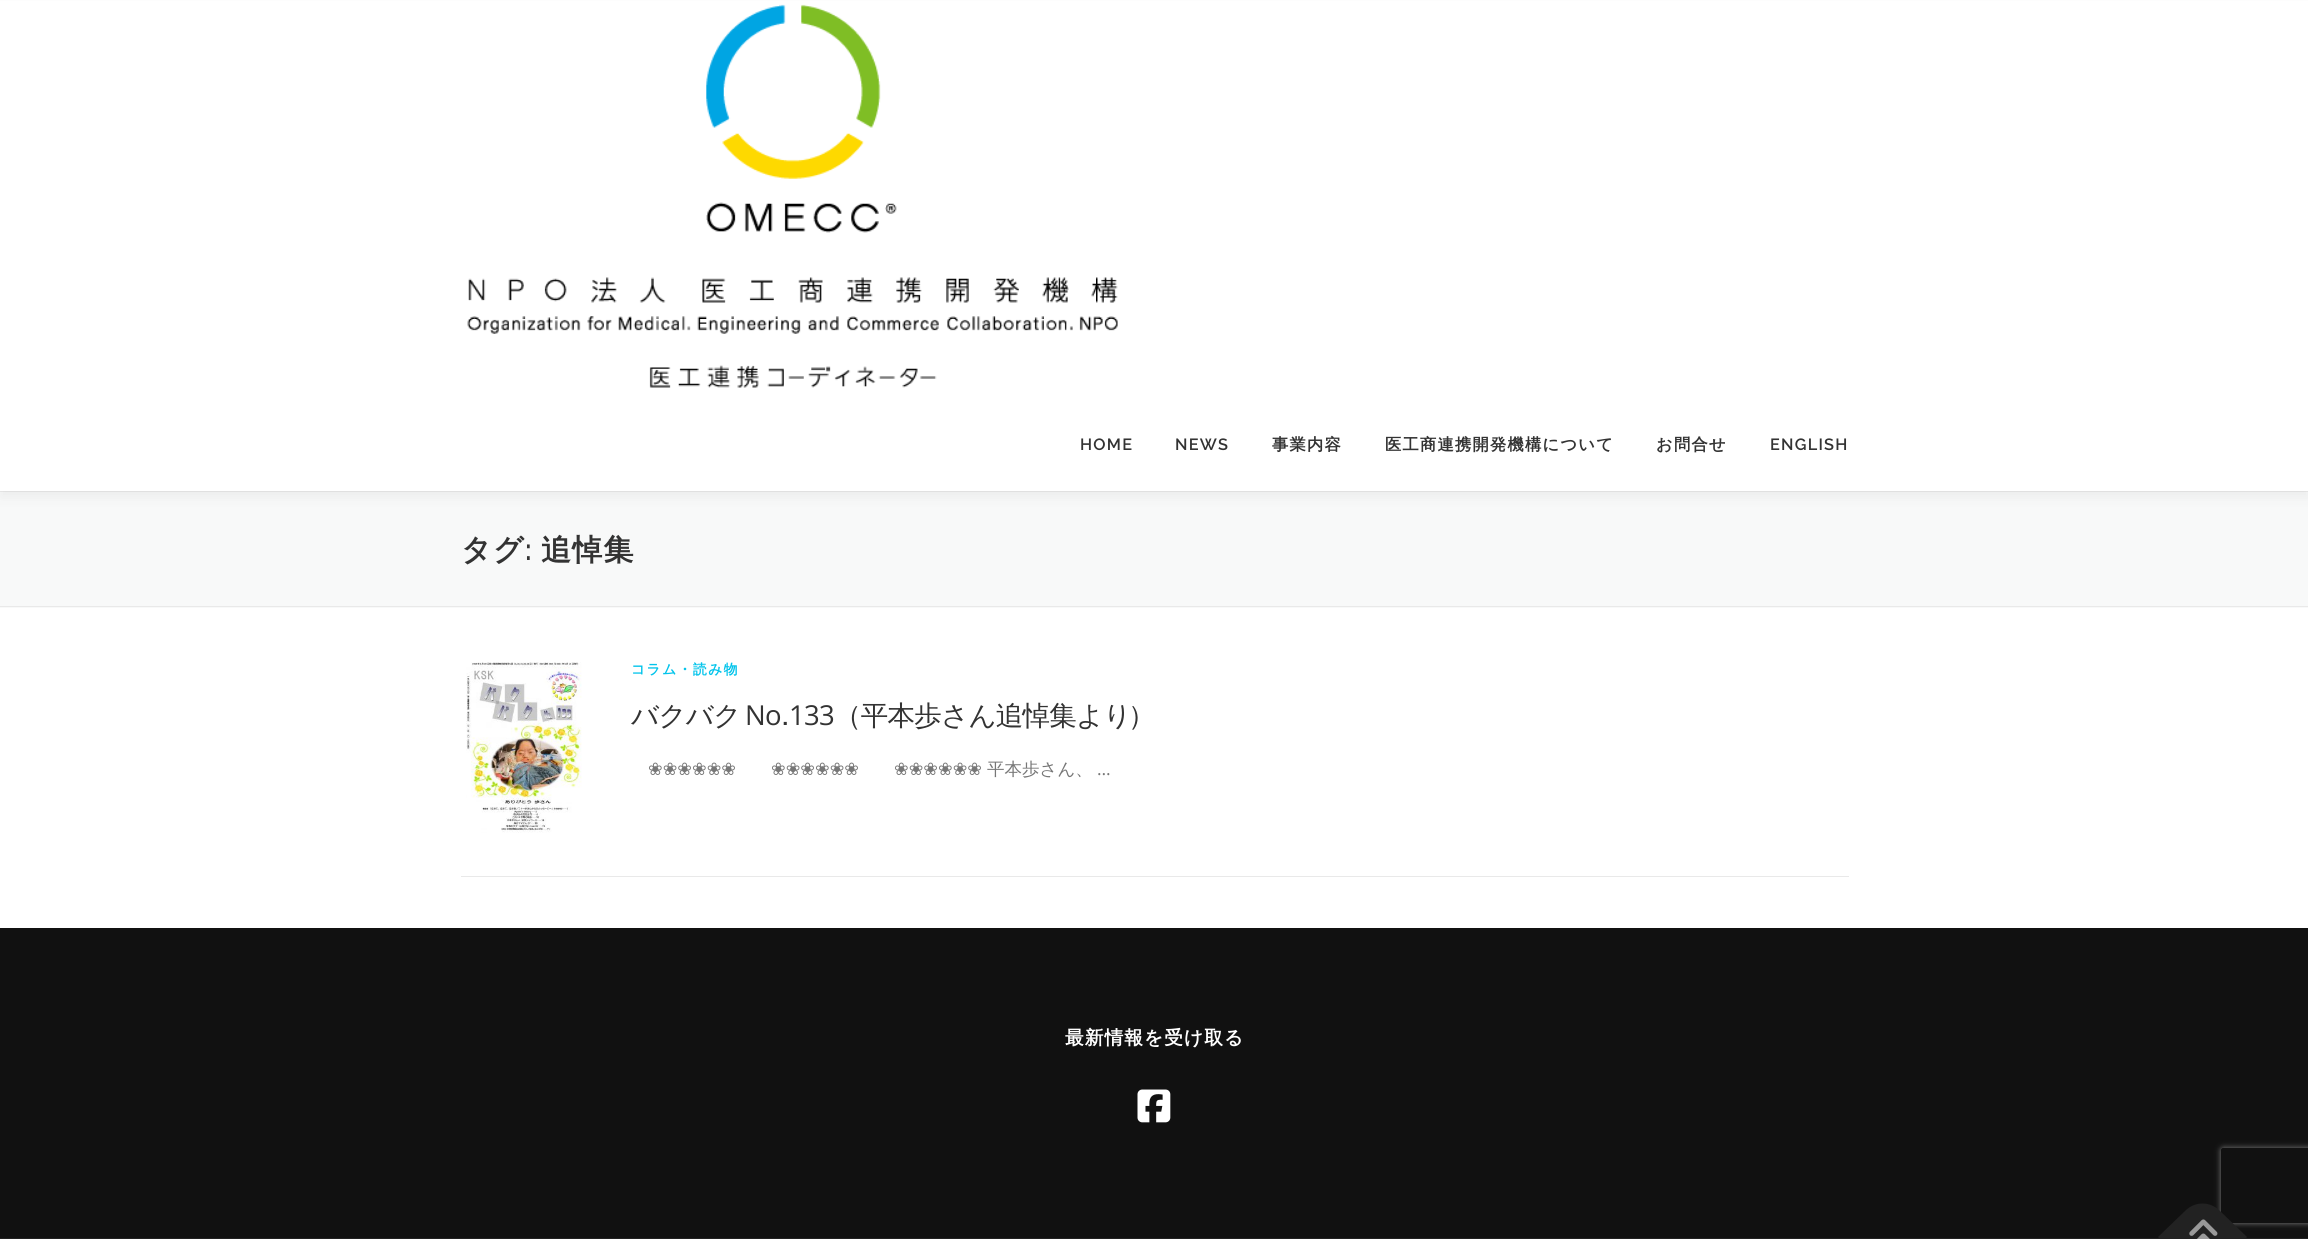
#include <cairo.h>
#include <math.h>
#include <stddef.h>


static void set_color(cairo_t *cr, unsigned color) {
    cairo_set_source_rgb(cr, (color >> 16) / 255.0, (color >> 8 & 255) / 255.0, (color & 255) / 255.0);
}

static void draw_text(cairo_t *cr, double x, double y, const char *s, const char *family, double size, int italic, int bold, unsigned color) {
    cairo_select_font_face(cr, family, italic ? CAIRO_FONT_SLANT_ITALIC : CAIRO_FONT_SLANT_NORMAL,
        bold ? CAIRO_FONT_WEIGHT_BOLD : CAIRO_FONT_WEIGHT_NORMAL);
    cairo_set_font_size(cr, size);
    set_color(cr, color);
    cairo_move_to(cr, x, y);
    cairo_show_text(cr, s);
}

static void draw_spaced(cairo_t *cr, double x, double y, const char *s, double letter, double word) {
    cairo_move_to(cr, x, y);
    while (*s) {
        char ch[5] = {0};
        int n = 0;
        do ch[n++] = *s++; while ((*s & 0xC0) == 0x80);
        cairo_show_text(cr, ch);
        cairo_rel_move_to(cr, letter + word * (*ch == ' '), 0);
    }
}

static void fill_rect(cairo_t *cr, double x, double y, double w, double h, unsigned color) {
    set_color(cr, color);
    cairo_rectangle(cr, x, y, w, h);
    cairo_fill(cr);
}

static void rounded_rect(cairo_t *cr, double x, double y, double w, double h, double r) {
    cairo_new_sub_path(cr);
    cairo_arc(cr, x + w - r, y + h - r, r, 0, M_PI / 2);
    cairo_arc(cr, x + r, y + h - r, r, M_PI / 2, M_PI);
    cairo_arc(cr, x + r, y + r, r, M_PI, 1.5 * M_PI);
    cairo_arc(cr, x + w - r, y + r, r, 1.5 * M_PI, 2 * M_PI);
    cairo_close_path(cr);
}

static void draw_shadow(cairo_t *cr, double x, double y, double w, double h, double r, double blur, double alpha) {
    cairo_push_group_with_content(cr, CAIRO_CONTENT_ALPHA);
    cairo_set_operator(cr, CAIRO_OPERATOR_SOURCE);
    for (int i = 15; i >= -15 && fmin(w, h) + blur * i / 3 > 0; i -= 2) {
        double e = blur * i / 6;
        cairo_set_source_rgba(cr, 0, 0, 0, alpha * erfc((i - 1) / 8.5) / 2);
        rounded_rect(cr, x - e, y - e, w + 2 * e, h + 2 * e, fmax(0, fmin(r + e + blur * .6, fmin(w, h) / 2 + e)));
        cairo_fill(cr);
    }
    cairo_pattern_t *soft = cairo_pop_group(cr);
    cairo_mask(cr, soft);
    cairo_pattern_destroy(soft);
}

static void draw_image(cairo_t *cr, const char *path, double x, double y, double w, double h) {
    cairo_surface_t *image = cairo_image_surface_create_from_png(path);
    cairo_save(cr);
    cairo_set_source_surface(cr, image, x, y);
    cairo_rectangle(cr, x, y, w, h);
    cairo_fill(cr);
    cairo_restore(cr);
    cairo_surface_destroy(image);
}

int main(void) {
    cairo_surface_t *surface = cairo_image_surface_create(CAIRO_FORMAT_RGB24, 2308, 1239);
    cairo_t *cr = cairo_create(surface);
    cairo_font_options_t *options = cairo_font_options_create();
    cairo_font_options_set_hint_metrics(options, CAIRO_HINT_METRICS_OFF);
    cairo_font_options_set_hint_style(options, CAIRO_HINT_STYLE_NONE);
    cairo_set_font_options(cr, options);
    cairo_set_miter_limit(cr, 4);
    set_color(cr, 0xFFFFFF);
    cairo_paint(cr);
    fill_rect(cr, 0, 492, 2308, 116, 0xF8F9F9);
    fill_rect(cr, 0, 491, 2308, 1, 0xE9E9E9);
    set_color(cr, 0x323232);
    draw_shadow(cr, 0, 6, 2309, 492, 0, 6, 0.06);
    fill_rect(cr, 0, 1, 2308, 490, 0xFFFFFF);
    draw_image(cr, "assets/img1.png", 467, 4, 651, 384);
    cairo_select_font_face(cr, "Raleway SemiBold", CAIRO_FONT_SLANT_NORMAL, CAIRO_FONT_WEIGHT_NORMAL);
    cairo_set_font_size(cr, 16.25);
    set_color(cr, 0x333333);
    draw_spaced(cr, 1080, 450, "HOME", 1.25, 0);
    draw_spaced(cr, 1175, 450, "NEWS", 1.25, 0);
    cairo_select_font_face(cr, "WenQuanYi Zen Hei", CAIRO_FONT_SLANT_NORMAL, CAIRO_FONT_WEIGHT_BOLD);
    draw_spaced(cr, 1272, 450, "事業内容", 1.25, 0);
    draw_spaced(cr, 1385, 450, "医工商連携開発機構について", 1.25, 0);
    draw_spaced(cr, 1656, 450, "お問合せ", 1.25, 0);
    cairo_select_font_face(cr, "Raleway SemiBold", CAIRO_FONT_SLANT_NORMAL, CAIRO_FONT_WEIGHT_NORMAL);
    draw_spaced(cr, 1770, 450, "ENGLISH", 1.25, 0);
    fill_rect(cr, 0, 606, 2308, 1, 0xE9E9E9);
    cairo_select_font_face(cr, "WenQuanYi Zen Hei", CAIRO_FONT_SLANT_NORMAL, CAIRO_FONT_WEIGHT_BOLD);
    cairo_set_font_size(cr, 30);
    set_color(cr, 0x333333);
    draw_spaced(cr, 461, 560, "タグ", 1.25, 0);
    cairo_select_font_face(cr, "Raleway SemiBold", CAIRO_FONT_SLANT_NORMAL, CAIRO_FONT_WEIGHT_NORMAL);
    draw_spaced(cr, 525, 560, ":", 1.25, 0);
    cairo_select_font_face(cr, "WenQuanYi Zen Hei", CAIRO_FONT_SLANT_NORMAL, CAIRO_FONT_WEIGHT_BOLD);
    draw_spaced(cr, 541, 560, "追悼集", 1.25, 0);
    fill_rect(cr, 461, 876, 1388, 1, 0xE9E9E9);
    draw_image(cr, "assets/img2.png", 466, 662, 116, 171);
    cairo_set_font_size(cr, 13.75);
    set_color(cr, 0x03C4EB);
    draw_spaced(cr, 631, 674, "コラム・読み物", 1.5, 0);
    cairo_select_font_face(cr, "WenQuanYi Zen Hei Medium", CAIRO_FONT_SLANT_NORMAL, CAIRO_FONT_WEIGHT_NORMAL);
    cairo_set_font_size(cr, 27.5);
    set_color(cr, 0x333333);
    draw_spaced(cr, 631, 725, "バクバク", -0.75, 0);
    cairo_select_font_face(cr, "Open Sans", CAIRO_FONT_SLANT_NORMAL, CAIRO_FONT_WEIGHT_NORMAL);
    draw_spaced(cr, 745, 725, "No", -0.75, 0);
    cairo_select_font_face(cr, "WenQuanYi Zen Hei Medium", CAIRO_FONT_SLANT_NORMAL, CAIRO_FONT_WEIGHT_NORMAL);
    draw_spaced(cr, 781, 725, ".", -0.75, 0);
    cairo_select_font_face(cr, "Open Sans", CAIRO_FONT_SLANT_NORMAL, CAIRO_FONT_WEIGHT_NORMAL);
    draw_spaced(cr, 789, 725, "133", -0.75, 0);
    cairo_select_font_face(cr, "WenQuanYi Zen Hei Medium", CAIRO_FONT_SLANT_NORMAL, CAIRO_FONT_WEIGHT_NORMAL);
    draw_spaced(cr, 834, 725, "（平本歩さん追悼集より)", -0.75, 0);
    draw_text(cr, 648, 775, "❀❀❀❀❀❀", "DejaVu Sans", 17.5, 0, 0, 0x777777);
    draw_text(cr, 771, 775, "❀❀❀❀❀❀", "DejaVu Sans", 17.5, 0, 0, 0x777777);
    draw_text(cr, 894, 775, "❀❀❀❀❀❀", "DejaVu Sans", 17.5, 0, 0, 0x777777);
    draw_text(cr, 987, 775, "平本歩さん、", "WenQuanYi Zen Hei Medium", 17.5, 0, 0, 0x777777);
    draw_text(cr, 1097, 775, "…", "Open Sans", 17.5, 0, 0, 0x777777);
    fill_rect(cr, 0, 928, 2308, 310, 0x111111);
    cairo_select_font_face(cr, "WenQuanYi Zen Hei", CAIRO_FONT_SLANT_NORMAL, CAIRO_FONT_WEIGHT_BOLD);
    cairo_set_font_size(cr, 18.75);
    set_color(cr, 0xFFFFFF);
    draw_spaced(cr, 1065, 1044, "最新情報を受け取る", 1, 0);
    draw_image(cr, "assets/img3.png", 1137, 1089, 34, 34);
    fill_rect(cr, 0, 1238, 2308, 1, 0x222222);
    cairo_save(cr);
    cairo_set_fill_rule(cr, CAIRO_FILL_RULE_EVEN_ODD);
    cairo_new_path(cr);
    cairo_move_to(cr, 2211, 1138);
    cairo_line_to(cr, 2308, 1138);
    cairo_line_to(cr, 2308, 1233);
    cairo_line_to(cr, 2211, 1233);
    cairo_close_path(cr);
    cairo_move_to(cr, 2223.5, 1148);
    cairo_line_to(cr, 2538.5, 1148);
    cairo_curve_to(cr, 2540, 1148, 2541, 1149, 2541, 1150.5);
    cairo_line_to(cr, 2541, 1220.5);
    cairo_curve_to(cr, 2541, 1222, 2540, 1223, 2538.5, 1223);
    cairo_line_to(cr, 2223.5, 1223);
    cairo_curve_to(cr, 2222, 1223, 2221, 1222, 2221, 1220.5);
    cairo_line_to(cr, 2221, 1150.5);
    cairo_curve_to(cr, 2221, 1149, 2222, 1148, 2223.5, 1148);
    cairo_close_path(cr);
    cairo_clip(cr);
    set_color(cr, 0x808080);
    draw_shadow(cr, 2221, 1148, 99, 75, 2.5, 3, 1);
    cairo_restore(cr);
    cairo_new_path(cr);
    cairo_move_to(cr, 2158, 1237);
    cairo_line_to(cr, 2185, 1211);
    cairo_curve_to(cr, 2195, 1201, 2210, 1201, 2220, 1211);
    cairo_line_to(cr, 2247, 1237);
    cairo_line_to(cr, 2202, 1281);
    cairo_close_path(cr);
    cairo_fill(cr);
    draw_image(cr, "assets/img4.png", 2189, 1219, 29, 20);
    cairo_surface_write_to_png(surface, "output.png");
    cairo_font_options_destroy(options);
    cairo_destroy(cr);
    cairo_surface_destroy(surface);
    return 0;
}
